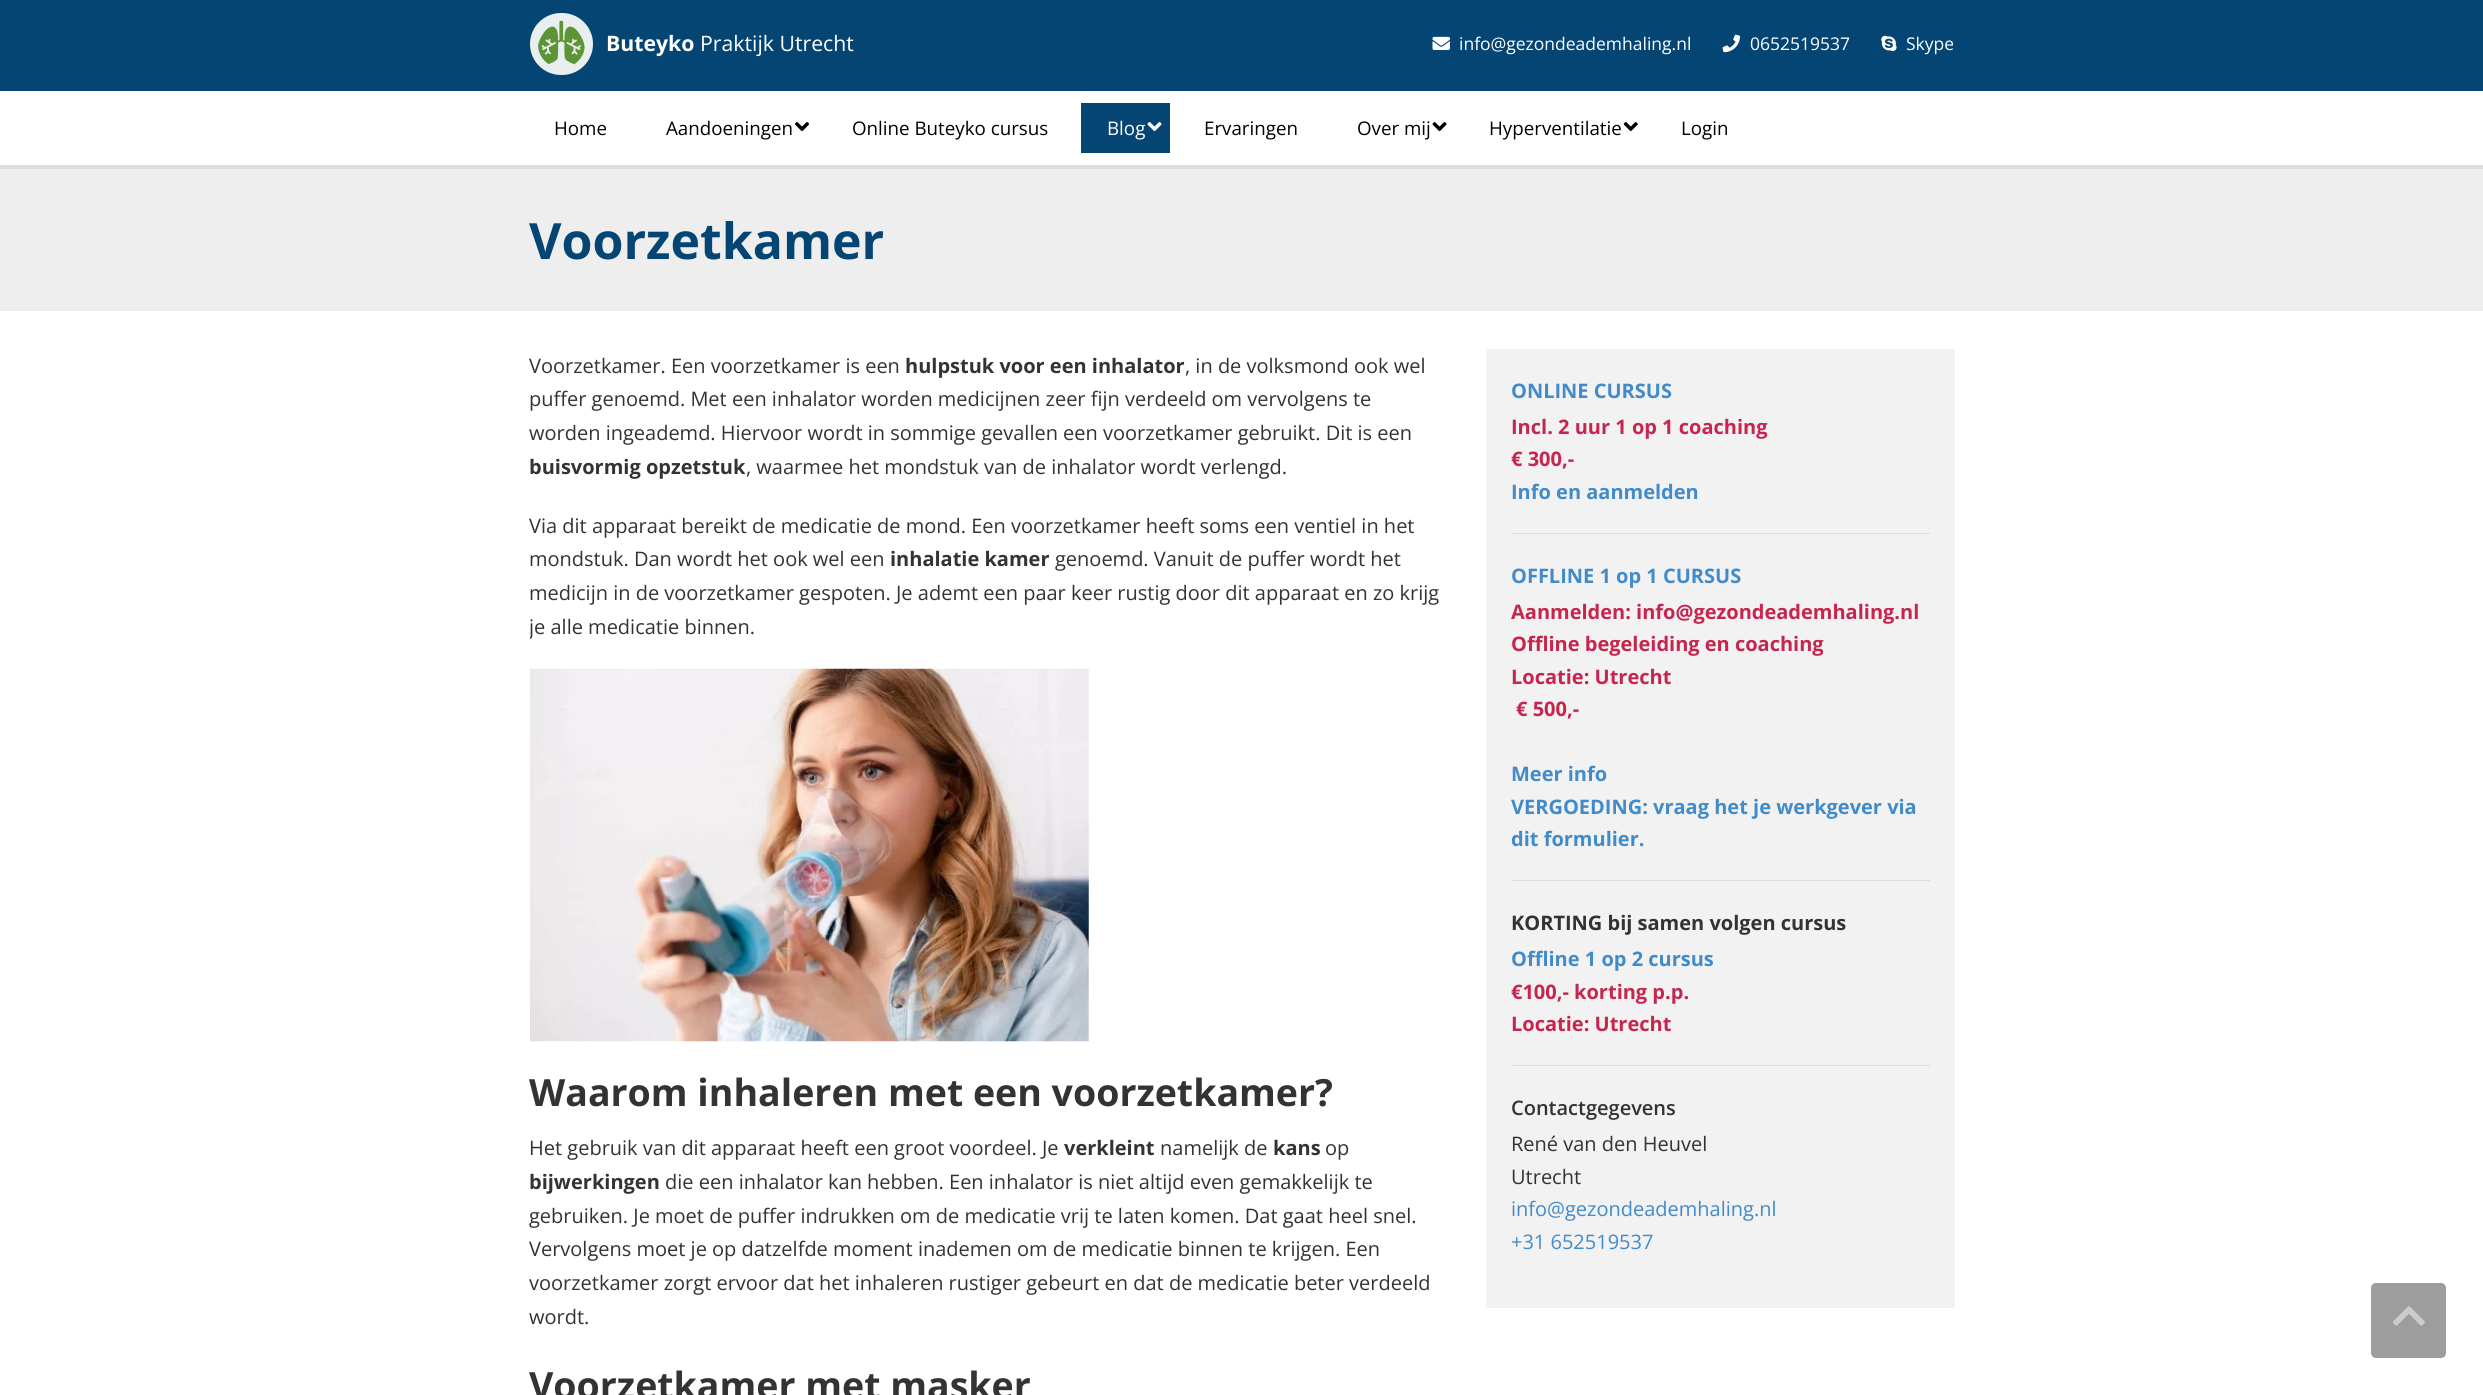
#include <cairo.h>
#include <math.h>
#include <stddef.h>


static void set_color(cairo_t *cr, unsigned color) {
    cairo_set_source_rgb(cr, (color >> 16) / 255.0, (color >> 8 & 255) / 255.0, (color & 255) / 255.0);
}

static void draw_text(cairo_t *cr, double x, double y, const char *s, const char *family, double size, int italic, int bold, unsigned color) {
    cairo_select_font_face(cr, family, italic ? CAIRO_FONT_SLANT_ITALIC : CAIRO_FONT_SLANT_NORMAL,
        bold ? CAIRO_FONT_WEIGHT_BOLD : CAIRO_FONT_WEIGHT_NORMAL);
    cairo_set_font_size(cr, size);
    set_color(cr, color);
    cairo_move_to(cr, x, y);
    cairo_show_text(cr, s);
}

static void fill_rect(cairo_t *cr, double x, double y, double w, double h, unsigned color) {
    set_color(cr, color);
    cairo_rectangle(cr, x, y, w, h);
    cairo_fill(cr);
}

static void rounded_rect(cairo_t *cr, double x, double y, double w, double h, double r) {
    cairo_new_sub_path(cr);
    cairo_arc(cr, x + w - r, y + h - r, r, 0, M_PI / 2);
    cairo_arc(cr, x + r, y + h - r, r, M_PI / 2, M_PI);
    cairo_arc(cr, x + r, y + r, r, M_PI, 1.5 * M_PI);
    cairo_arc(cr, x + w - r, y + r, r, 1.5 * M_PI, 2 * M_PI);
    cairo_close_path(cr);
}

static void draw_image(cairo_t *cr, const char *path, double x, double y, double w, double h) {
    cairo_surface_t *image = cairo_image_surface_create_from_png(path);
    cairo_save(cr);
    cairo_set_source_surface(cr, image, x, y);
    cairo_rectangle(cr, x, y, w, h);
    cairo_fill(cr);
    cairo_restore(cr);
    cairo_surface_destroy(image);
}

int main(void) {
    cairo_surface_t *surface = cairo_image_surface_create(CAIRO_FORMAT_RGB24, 2483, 1395);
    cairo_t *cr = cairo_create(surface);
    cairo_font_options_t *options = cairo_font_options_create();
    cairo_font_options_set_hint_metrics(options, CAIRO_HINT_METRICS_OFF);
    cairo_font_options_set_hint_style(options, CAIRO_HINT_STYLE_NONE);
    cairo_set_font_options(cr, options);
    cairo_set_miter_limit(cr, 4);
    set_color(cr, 0xFFFFFF);
    cairo_paint(cr);
    fill_rect(cr, 0, 0, 2483, 91, 0x054573);
    set_color(cr, 0xE9EFEF);
    rounded_rect(cr, 530, 13, 63, 62, 31);
    cairo_fill(cr);
    draw_image(cr, "assets/img1.png", 538, 20, 47, 45);
    draw_text(cr, 606, 51, "Buteyko", "Open Sans", 21.25, 0, 1, 0xFFFFFF);
    draw_text(cr, 700, 51, "Praktijk Utrecht", "Open Sans", 21.25, 0, 0, 0xFFFFFF);
    draw_image(cr, "assets/img2.png", 1432, 36, 18, 14);
    draw_text(cr, 1459, 50, "info@gezondeademhaling.nl", "Open Sans", 17.5, 0, 0, 0xFFFFFF);
    draw_image(cr, "assets/img3.png", 1722, 34, 18, 19);
    draw_text(cr, 1750, 50, "0652519537", "Open Sans", 17.5, 0, 0, 0xFFFFFF);
    draw_image(cr, "assets/img4.png", 1881, 35, 16, 17);
    draw_text(cr, 1906, 50, "Skype", "Open Sans", 17.5, 0, 0, 0xFFFFFF);
    draw_text(cr, 554, 135, "Home", "Open Sans", 18.75, 0, 0, 0x000000);
    draw_text(cr, 666, 135, "Aandoeningen", "Open Sans", 18.75, 0, 0, 0x000000);
    draw_image(cr, "assets/img5.png", 795, 122, 14, 9);
    draw_text(cr, 852, 135, "Online Buteyko cursus", "Open Sans", 18.75, 0, 0, 0x000000);
    fill_rect(cr, 1081, 103, 89, 50, 0x054573);
    draw_text(cr, 1107, 135, "Blog", "Open Sans", 18.75, 0, 0, 0xFFFFFF);
    draw_image(cr, "assets/img6.png", 1147, 122, 15, 10);
    draw_text(cr, 1204, 135, "Ervaringen", "Open Sans", 18.75, 0, 0, 0x000000);
    draw_text(cr, 1357, 135, "Over mij", "Open Sans", 18.75, 0, 0, 0x000000);
    draw_image(cr, "assets/img7.png", 1432, 122, 15, 10);
    draw_text(cr, 1489, 135, "Hyperventilatie", "Open Sans", 18.75, 0, 0, 0x000000);
    draw_image(cr, "assets/img8.png", 1623, 122, 15, 10);
    draw_text(cr, 1681, 135, "Login", "Open Sans", 18.75, 0, 0, 0x000000);
    fill_rect(cr, 0, 169, 2483, 142, 0xEEEEEE);
    fill_rect(cr, 0, 165, 2483, 4, 0xDDDDDD);
    draw_text(cr, 529, 259, "Voorzetkamer", "Open Sans", 50, 0, 1, 0x054573);
    draw_text(cr, 529, 373, "Voorzetkamer. Een voorzetkamer is een", "Open Sans", 20, 0, 0, 0x333333);
    draw_text(cr, 905, 373, "hulpstuk voor een inhalator", "Open Sans", 20, 0, 1, 0x333333);
    draw_text(cr, 1185, 373, ", in de volksmond ook wel", "Open Sans", 20, 0, 0, 0x333333);
    draw_text(cr, 529, 406, "puffer genoemd. Met een inhalator worden medicijnen zeer fijn verdeeld om vervolgens te", "Open Sans", 20, 0, 0, 0x333333);
    draw_text(cr, 529, 440, "worden ingeademd. Hiervoor wordt in sommige gevallen een voorzetkamer gebruikt. Dit is een", "Open Sans", 20, 0, 0, 0x333333);
    draw_text(cr, 529, 474, "buisvormig opzetstuk", "Open Sans", 20, 0, 1, 0x333333);
    draw_text(cr, 746, 474, ", waarmee het mondstuk van de inhalator wordt verlengd.", "Open Sans", 20, 0, 0, 0x333333);
    draw_text(cr, 529, 533, "Via dit apparaat bereikt de medicatie de mond. Een voorzetkamer heeft soms een ventiel in het", "Open Sans", 20, 0, 0, 0x333333);
    draw_text(cr, 529, 566, "mondstuk. Dan wordt het ook wel een", "Open Sans", 20, 0, 0, 0x333333);
    draw_text(cr, 890, 566, "inhalatie kamer", "Open Sans", 20, 0, 1, 0x333333);
    draw_text(cr, 1055, 566, "genoemd. Vanuit de puffer wordt het", "Open Sans", 20, 0, 0, 0x333333);
    draw_text(cr, 529, 600, "medicijn in de voorzetkamer gespoten. Je ademt een paar keer rustig door dit apparaat en zo krijg", "Open Sans", 20, 0, 0, 0x333333);
    cairo_save(cr);
    cairo_rectangle(cr, 530, 349, 938, 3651);
    cairo_clip(cr);
    draw_text(cr, 529, 634, "je alle medicatie binnen.", "Open Sans", 20, 0, 0, 0x333333);
    cairo_restore(cr);
    draw_image(cr, "assets/img9.png", 530, 668, 559, 374);
    draw_text(cr, 529, 1106, "Waarom inhaleren met een voorzetkamer?", "Open Sans", 37.5, 0, 1, 0x333333);
    draw_text(cr, 529, 1155, "Het gebruik van dit apparaat heeft een groot voordeel. Je", "Open Sans", 20, 0, 0, 0x333333);
    draw_text(cr, 1064, 1155, "verkleint", "Open Sans", 20, 0, 1, 0x333333);
    draw_text(cr, 1160, 1155, "namelijk de", "Open Sans", 20, 0, 0, 0x333333);
    draw_text(cr, 1273, 1155, "kans", "Open Sans", 20, 0, 1, 0x333333);
    draw_text(cr, 1325, 1155, "op", "Open Sans", 20, 0, 0, 0x333333);
    draw_text(cr, 529, 1189, "bijwerkingen", "Open Sans", 20, 0, 1, 0x333333);
    draw_text(cr, 665, 1189, "die een inhalator kan hebben. Een inhalator is niet altijd even gemakkelijk te", "Open Sans", 20, 0, 0, 0x333333);
    draw_text(cr, 529, 1223, "gebruiken. Je moet de puffer indrukken om de medicatie vrij te laten komen. Dat gaat heel snel.", "Open Sans", 20, 0, 0, 0x333333);
    draw_text(cr, 529, 1256, "Vervolgens moet je op datzelfde moment inademen om de medicatie binnen te krijgen. Een", "Open Sans", 20, 0, 0, 0x333333);
    draw_text(cr, 529, 1290, "voorzetkamer zorgt ervoor dat het inhaleren rustiger gebeurt en dat de medicatie beter verdeeld", "Open Sans", 20, 0, 0, 0x333333);
    draw_text(cr, 529, 1324, "wordt.", "Open Sans", 20, 0, 0, 0x333333);
    draw_text(cr, 529, 1399, "Voorzetkamer met masker", "Open Sans", 37.5, 0, 1, 0x333333);
    fill_rect(cr, 1486, 349, 469, 959, 0xF2F2F2);
    fill_rect(cr, 1511, 533, 419, 1, 0xDDDDDD);
    draw_text(cr, 1511, 398, "ONLINE CURSUS", "Open Sans", 20, 0, 1, 0x428BCA);
    draw_text(cr, 1511, 434, "Incl. 2 uur 1 op 1 coaching", "Open Sans", 20, 0, 1, 0xC7254E);
    draw_text(cr, 1511, 466, "€ 300,-", "Open Sans", 20, 0, 1, 0xC7254E);
    draw_text(cr, 1511, 499, "Info en aanmelden", "Open Sans", 20, 0, 1, 0x428BCA);
    fill_rect(cr, 1511, 880, 419, 1, 0xDDDDDD);
    draw_text(cr, 1511, 583, "OFFLINE 1 op 1 CURSUS", "Open Sans", 20, 0, 1, 0x428BCA);
    draw_text(cr, 1511, 619, "Aanmelden: info@gezondeademhaling.nl", "Open Sans", 20, 0, 1, 0xC7254E);
    draw_text(cr, 1511, 651, "Offline begeleiding en coaching", "Open Sans", 20, 0, 1, 0xC7254E);
    draw_text(cr, 1511, 684, "Locatie: Utrecht", "Open Sans", 20, 0, 1, 0xC7254E);
    draw_text(cr, 1516, 716, "€ 500,-", "Open Sans", 20, 0, 1, 0xC7254E);
    draw_text(cr, 1511, 781, "Meer info", "Open Sans", 20, 0, 1, 0x428BCA);
    draw_text(cr, 1511, 814, "VERGOEDING: vraag het je werkgever via", "Open Sans", 20, 0, 1, 0x428BCA);
    draw_text(cr, 1511, 846, "dit formulier.", "Open Sans", 20, 0, 1, 0x428BCA);
    fill_rect(cr, 1511, 1065, 419, 1, 0xDDDDDD);
    draw_text(cr, 1511, 930, "KORTING bij samen volgen cursus", "Open Sans", 20, 0, 1, 0x333333);
    draw_text(cr, 1511, 966, "Offline 1 op 2 cursus", "Open Sans", 20, 0, 1, 0x428BCA);
    draw_text(cr, 1511, 999, "€100,- korting p.p.", "Open Sans", 20, 0, 1, 0xC7254E);
    draw_text(cr, 1511, 1031, "Locatie: Utrecht", "Open Sans", 20, 0, 1, 0xC7254E);
    draw_text(cr, 1511, 1115, "Contactgegevens", "Open Sans SemiBold", 20, 0, 0, 0x333333);
    draw_text(cr, 1511, 1151, "René van den Heuvel", "Open Sans", 20, 0, 0, 0x333333);
    draw_text(cr, 1511, 1184, "Utrecht", "Open Sans", 20, 0, 0, 0x333333);
    draw_text(cr, 1511, 1216, "info@gezondeademhaling.nl", "Open Sans", 20, 0, 0, 0x428BCA);
    draw_text(cr, 1511, 1249, "+31 652519537", "Open Sans", 20, 0, 0, 0x428BCA);
    set_color(cr, 0x9D9D9D);
    rounded_rect(cr, 2371, 1283, 75, 75, 5);
    cairo_fill(cr);
    draw_image(cr, "assets/img10.png", 2393, 1306, 32, 20);
    cairo_surface_write_to_png(surface, "output.png");
    cairo_font_options_destroy(options);
    cairo_destroy(cr);
    cairo_surface_destroy(surface);
    return 0;
}
